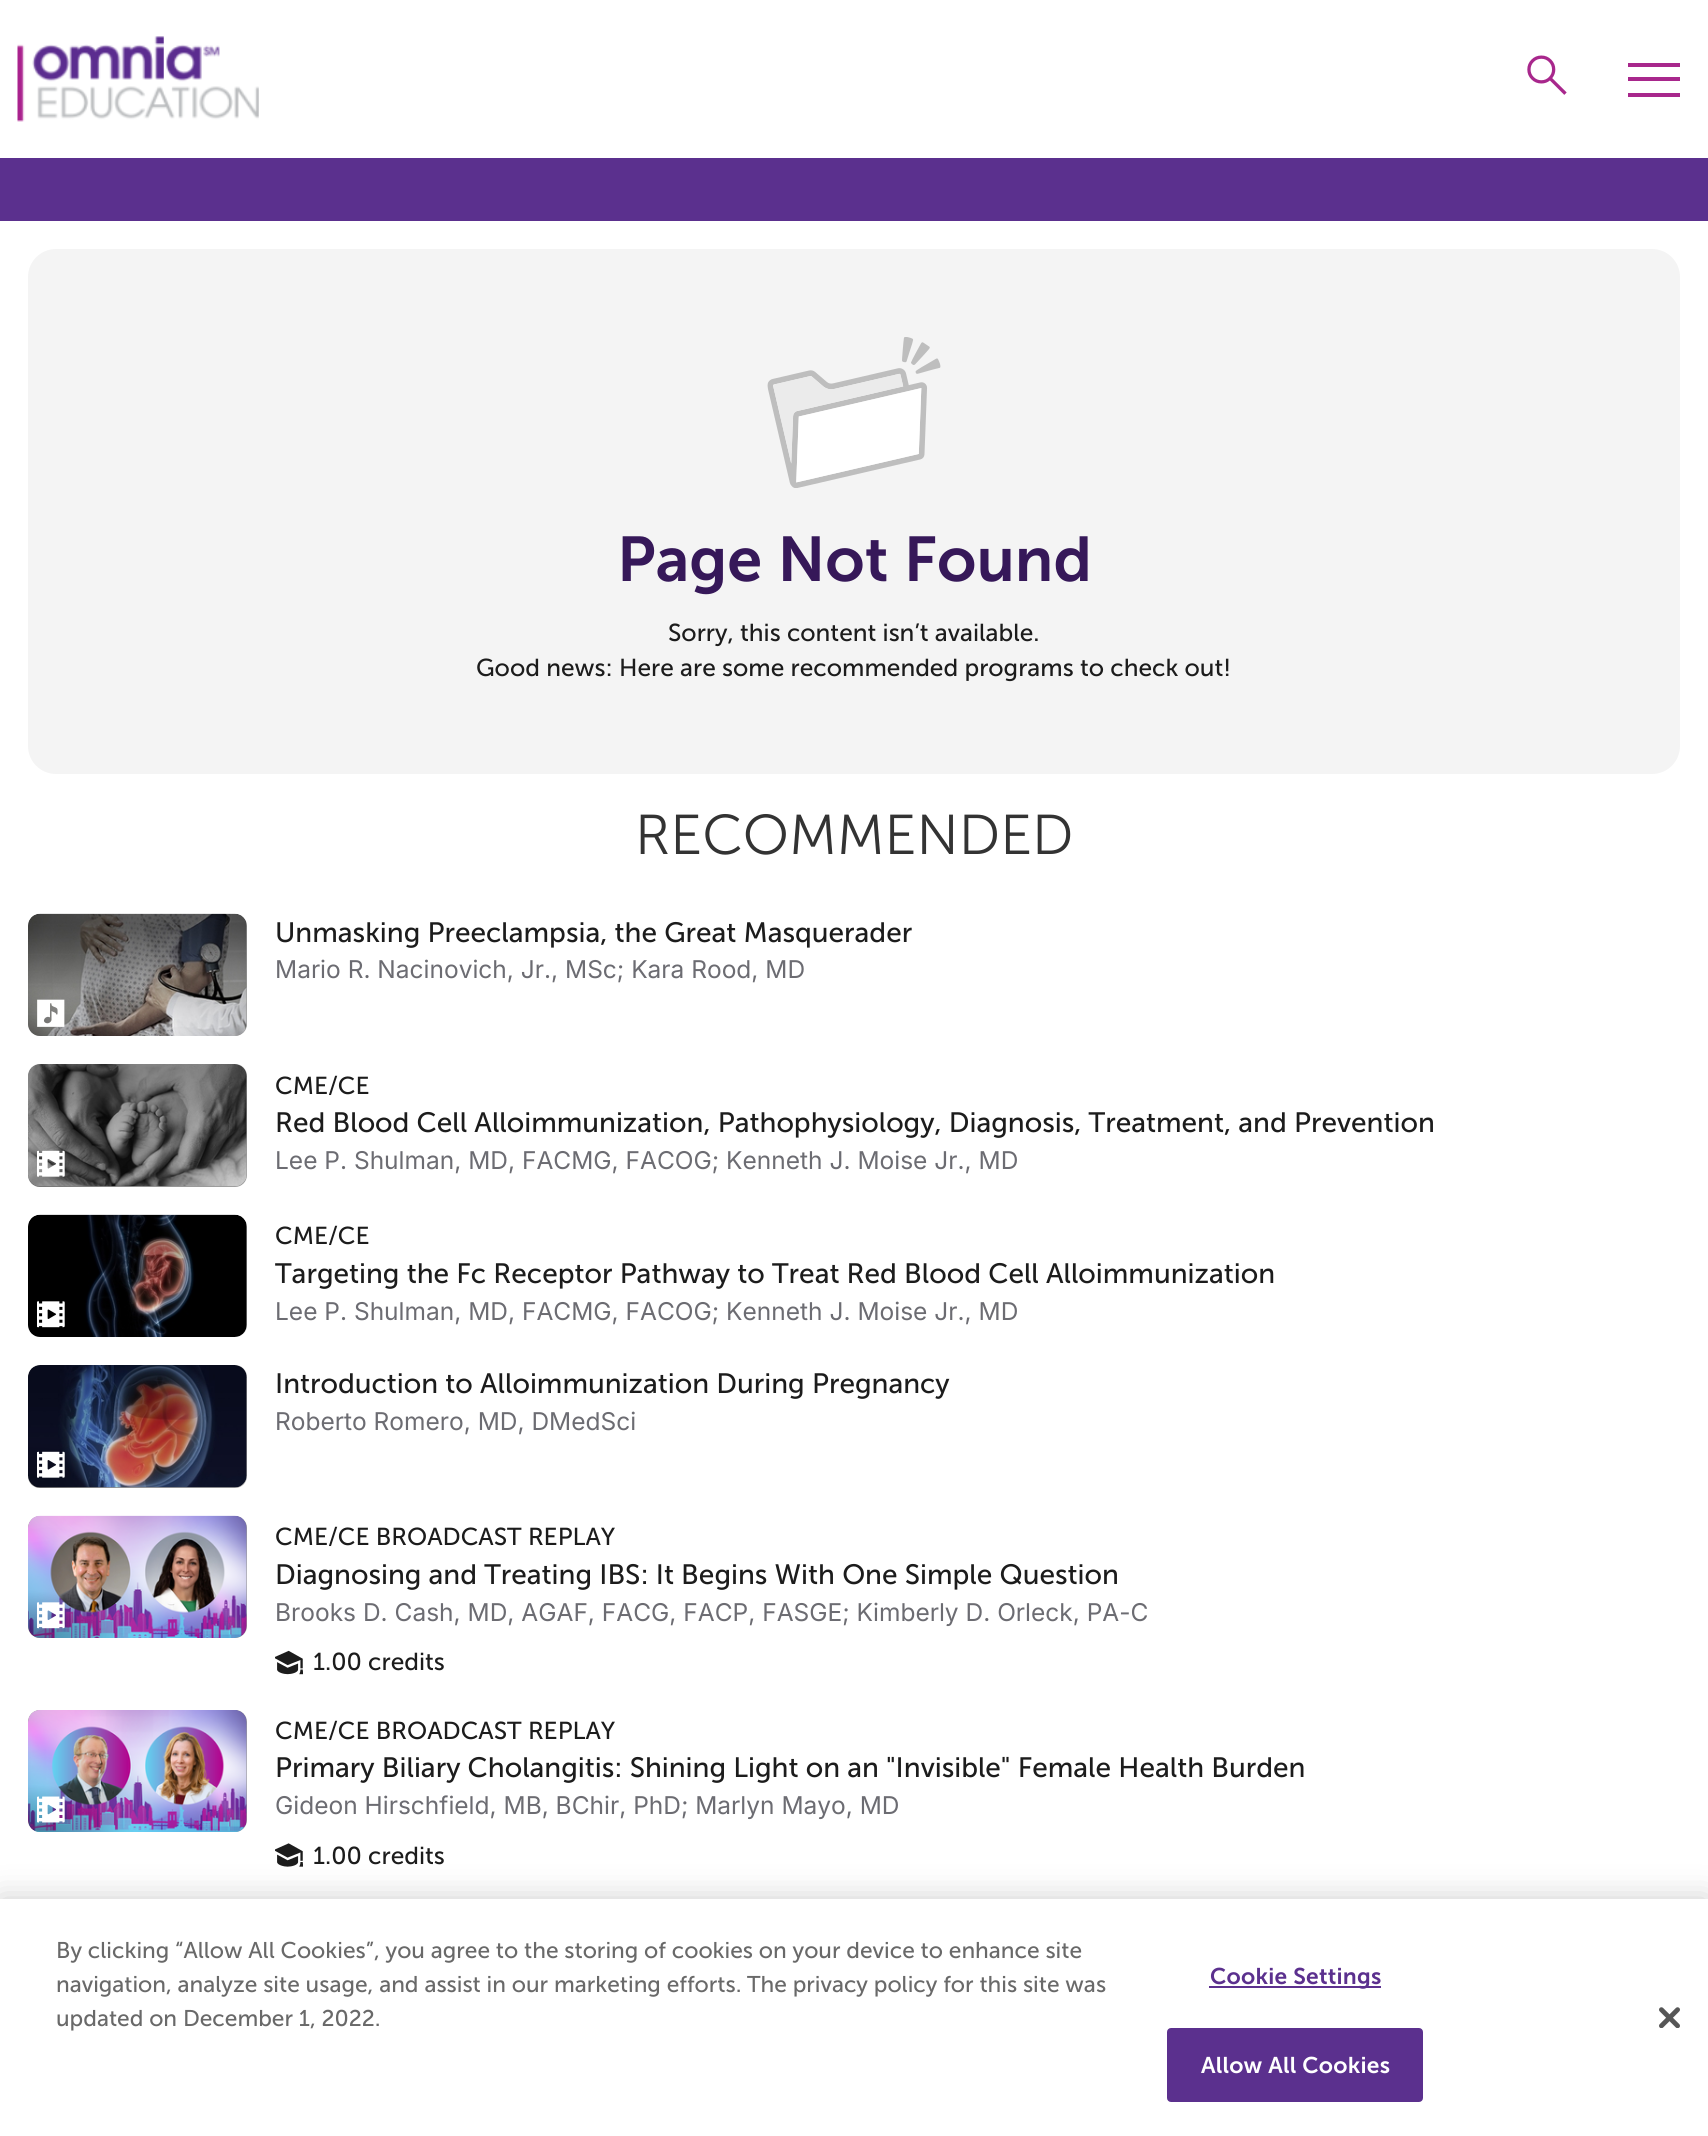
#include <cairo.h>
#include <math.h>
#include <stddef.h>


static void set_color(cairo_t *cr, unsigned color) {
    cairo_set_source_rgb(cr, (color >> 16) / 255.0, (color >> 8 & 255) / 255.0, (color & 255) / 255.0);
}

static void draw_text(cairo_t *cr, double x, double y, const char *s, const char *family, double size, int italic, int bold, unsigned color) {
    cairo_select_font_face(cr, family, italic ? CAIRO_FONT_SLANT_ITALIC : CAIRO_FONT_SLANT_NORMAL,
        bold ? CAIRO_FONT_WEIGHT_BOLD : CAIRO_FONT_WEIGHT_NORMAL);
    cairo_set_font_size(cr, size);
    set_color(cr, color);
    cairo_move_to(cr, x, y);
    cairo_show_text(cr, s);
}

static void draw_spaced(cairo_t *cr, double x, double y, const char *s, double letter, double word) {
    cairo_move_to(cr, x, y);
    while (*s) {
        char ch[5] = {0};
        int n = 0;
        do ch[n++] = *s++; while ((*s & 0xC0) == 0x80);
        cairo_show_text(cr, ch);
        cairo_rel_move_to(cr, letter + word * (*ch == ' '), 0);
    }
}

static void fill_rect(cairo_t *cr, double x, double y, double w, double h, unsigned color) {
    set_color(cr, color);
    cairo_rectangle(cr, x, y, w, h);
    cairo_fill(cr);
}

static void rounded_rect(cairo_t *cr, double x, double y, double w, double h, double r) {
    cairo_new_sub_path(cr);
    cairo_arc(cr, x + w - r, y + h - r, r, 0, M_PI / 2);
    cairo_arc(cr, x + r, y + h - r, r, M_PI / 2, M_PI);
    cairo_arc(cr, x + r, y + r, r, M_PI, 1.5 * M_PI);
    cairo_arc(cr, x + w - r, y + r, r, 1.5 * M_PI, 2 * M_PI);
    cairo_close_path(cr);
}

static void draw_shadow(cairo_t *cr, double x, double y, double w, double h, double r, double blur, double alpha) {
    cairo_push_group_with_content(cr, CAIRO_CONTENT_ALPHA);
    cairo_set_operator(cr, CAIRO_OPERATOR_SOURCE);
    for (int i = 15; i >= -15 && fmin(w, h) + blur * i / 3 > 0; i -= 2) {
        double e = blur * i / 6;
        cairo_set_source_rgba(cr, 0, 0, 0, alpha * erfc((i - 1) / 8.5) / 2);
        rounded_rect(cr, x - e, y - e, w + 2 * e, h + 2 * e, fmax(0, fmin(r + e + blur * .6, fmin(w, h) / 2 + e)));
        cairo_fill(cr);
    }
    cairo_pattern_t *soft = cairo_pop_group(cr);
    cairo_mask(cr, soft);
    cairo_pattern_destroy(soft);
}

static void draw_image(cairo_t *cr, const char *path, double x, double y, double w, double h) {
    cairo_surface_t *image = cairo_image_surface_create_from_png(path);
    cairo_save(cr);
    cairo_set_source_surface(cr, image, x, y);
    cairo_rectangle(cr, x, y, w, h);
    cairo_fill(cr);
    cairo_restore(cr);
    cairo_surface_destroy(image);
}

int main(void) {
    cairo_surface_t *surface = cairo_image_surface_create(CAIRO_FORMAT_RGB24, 1708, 2136);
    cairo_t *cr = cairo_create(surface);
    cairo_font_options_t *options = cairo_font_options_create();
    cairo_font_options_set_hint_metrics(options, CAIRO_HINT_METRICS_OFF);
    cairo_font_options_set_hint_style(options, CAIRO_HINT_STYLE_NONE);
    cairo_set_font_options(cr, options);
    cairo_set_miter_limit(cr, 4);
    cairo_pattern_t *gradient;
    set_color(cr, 0xFFFFFF);
    cairo_paint(cr);
    draw_image(cr, "assets/img1.png", 17, 36, 242, 86);
    draw_image(cr, "assets/img2.png", 1527, 55, 40, 40);
    fill_rect(cr, 1628, 63, 52, 4, 0xA8278C);
    fill_rect(cr, 1628, 77, 52, 4, 0xA8278C);
    fill_rect(cr, 1628, 93, 52, 4, 0xA8278C);
    fill_rect(cr, 0, 158, 1708, 63, 0x5B308E);
    set_color(cr, 0xF4F4F4);
    rounded_rect(cr, 28, 249, 1652, 525, 28);
    cairo_fill(cr);
    draw_image(cr, "assets/img3.png", 767, 337, 174, 151);
    draw_text(cr, 617, 581, "Page Not Found", "Museo Sans SemiBold", 63, 0, 0, 0x361859);
    draw_text(cr, 668, 641, "Sorry, this content isn’t available.", "Museo Sans", 24.5, 0, 0, 0x1C1C1C);
    draw_text(cr, 476, 676, "Good news: Here are some recommended programs to check out!", "Museo Sans", 24.5, 0, 0, 0x1C1C1C);
    draw_text(cr, 635, 854, "RECOMMENDED", "Museo Sans Light", 56, 0, 0, 0x333333);
    set_color(cr, 0x999999);
    rounded_rect(cr, 28, 914, 219, 122, 12);
    cairo_fill(cr);
    draw_image(cr, "assets/img4.png", 28, 913, 219, 123);
    gradient = cairo_pattern_create_radial(0, 0, 0, 0, 0, 1);
    cairo_pattern_set_matrix(gradient, &(cairo_matrix_t){1.0 / 107, 0, 0, 1.0 / 47, -1.0 * 28 / 107, -1.0 * 1036 / 47});
    cairo_pattern_add_color_stop_rgba(gradient, 0, 0, 0, 0, 0.3);
    cairo_pattern_add_color_stop_rgba(gradient, 1, 0, 0, 0, 0);
    cairo_set_source(cr, gradient);
    cairo_pattern_destroy(gradient);
    rounded_rect(cr, 28, 914, 219, 122, 12);
    cairo_fill(cr);
    draw_image(cr, "assets/img5.png", 37, 999, 28, 28);
    draw_text(cr, 275, 942, "Unmasking Preeclampsia, the Great Masquerader", "Museo Sans", 28, 0, 0, 0x1C1C1C);
    draw_text(cr, 275, 978, "Mario R. Nacinovich, Jr., MSc; Kara Rood, MD", "Inter", 24.5, 0, 0, 0x6C6C72);
    set_color(cr, 0x999999);
    rounded_rect(cr, 28, 1064, 219, 123, 12);
    cairo_fill(cr);
    draw_image(cr, "assets/img6.png", 28, 1064, 219, 123);
    gradient = cairo_pattern_create_radial(0, 0, 0, 0, 0, 1);
    cairo_pattern_set_matrix(gradient, &(cairo_matrix_t){1.0 / 107, 0, 0, 1.0 / 47, -1.0 * 28 / 107, -1.0 * 1187 / 47});
    cairo_pattern_add_color_stop_rgba(gradient, 0, 0, 0, 0, 0.3);
    cairo_pattern_add_color_stop_rgba(gradient, 1, 0, 0, 0, 0);
    cairo_set_source(cr, gradient);
    cairo_pattern_destroy(gradient);
    rounded_rect(cr, 28, 1064, 219, 123, 12);
    cairo_fill(cr);
    draw_image(cr, "assets/img7.png", 37, 1150, 28, 27);
    draw_text(cr, 275, 1094, "CME/CE", "Museo Sans", 24.5, 0, 0, 0x1C1C1C);
    draw_text(cr, 275, 1132, "Red Blood Cell Alloimmunization, Pathophysiology, Diagnosis, Treatment, and Prevention", "Museo Sans", 28, 0, 0, 0x1C1C1C);
    draw_text(cr, 275, 1169, "Lee P. Shulman, MD, FACMG, FACOG; Kenneth J. Moise Jr., MD", "Inter", 24.5, 0, 0, 0x6C6C72);
    set_color(cr, 0x999999);
    rounded_rect(cr, 28, 1215, 219, 122, 12);
    cairo_fill(cr);
    draw_image(cr, "assets/img8.png", 28, 1214, 219, 123);
    gradient = cairo_pattern_create_radial(0, 0, 0, 0, 0, 1);
    cairo_pattern_set_matrix(gradient, &(cairo_matrix_t){1.0 / 107, 0, 0, 1.0 / 47, -1.0 * 28 / 107, -1.0 * 1337 / 47});
    cairo_pattern_add_color_stop_rgba(gradient, 0, 0, 0, 0, 0.3);
    cairo_pattern_add_color_stop_rgba(gradient, 1, 0, 0, 0, 0);
    cairo_set_source(cr, gradient);
    cairo_pattern_destroy(gradient);
    rounded_rect(cr, 28, 1215, 219, 122, 12);
    cairo_fill(cr);
    draw_image(cr, "assets/img9.png", 37, 1301, 28, 27);
    draw_text(cr, 275, 1244, "CME/CE", "Museo Sans", 24.5, 0, 0, 0x1C1C1C);
    cairo_save(cr);
    cairo_rectangle(cr, 275, 1255, 1405, 38);
    cairo_clip(cr);
    draw_text(cr, 275, 1283, "Targeting the Fc Receptor Pathway to Treat Red Blood Cell Alloimmunization", "Museo Sans", 28, 0, 0, 0x1C1C1C);
    cairo_restore(cr);
    draw_text(cr, 275, 1320, "Lee P. Shulman, MD, FACMG, FACOG; Kenneth J. Moise Jr., MD", "Inter", 24.5, 0, 0, 0x6C6C72);
    set_color(cr, 0x999999);
    rounded_rect(cr, 28, 1365, 219, 123, 12);
    cairo_fill(cr);
    draw_image(cr, "assets/img10.png", 28, 1365, 219, 123);
    gradient = cairo_pattern_create_radial(0, 0, 0, 0, 0, 1);
    cairo_pattern_set_matrix(gradient, &(cairo_matrix_t){1.0 / 107, 0, 0, 1.0 / 47, -1.0 * 28 / 107, -1.0 * 1488 / 47});
    cairo_pattern_add_color_stop_rgba(gradient, 0, 0, 0, 0, 0.3);
    cairo_pattern_add_color_stop_rgba(gradient, 1, 0, 0, 0, 0);
    cairo_set_source(cr, gradient);
    cairo_pattern_destroy(gradient);
    rounded_rect(cr, 28, 1365, 219, 123, 12);
    cairo_fill(cr);
    draw_image(cr, "assets/img11.png", 37, 1451, 28, 27);
    draw_text(cr, 275, 1393, "Introduction to Alloimmunization During Pregnancy", "Museo Sans", 28, 0, 0, 0x1C1C1C);
    draw_text(cr, 275, 1430, "Roberto Romero, MD, DMedSci", "Inter", 24.5, 0, 0, 0x6C6C72);
    set_color(cr, 0x999999);
    rounded_rect(cr, 28, 1516, 219, 122, 12);
    cairo_fill(cr);
    draw_image(cr, "assets/img12.png", 28, 1515, 219, 123);
    gradient = cairo_pattern_create_radial(0, 0, 0, 0, 0, 1);
    cairo_pattern_set_matrix(gradient, &(cairo_matrix_t){1.0 / 107, 0, 0, 1.0 / 47, -1.0 * 28 / 107, -1.0 * 1638 / 47});
    cairo_pattern_add_color_stop_rgba(gradient, 0, 0, 0, 0, 0.3);
    cairo_pattern_add_color_stop_rgba(gradient, 1, 0, 0, 0, 0);
    cairo_set_source(cr, gradient);
    cairo_pattern_destroy(gradient);
    rounded_rect(cr, 28, 1516, 219, 122, 12);
    cairo_fill(cr);
    draw_image(cr, "assets/img13.png", 37, 1602, 28, 27);
    draw_text(cr, 275, 1545, "CME/CE BROADCAST REPLAY", "Museo Sans", 24.5, 0, 0, 0x1C1C1C);
    draw_text(cr, 275, 1584, "Diagnosing and Treating IBS: It Begins With One Simple Question", "Museo Sans", 28, 0, 0, 0x1C1C1C);
    draw_text(cr, 275, 1621, "Brooks D. Cash, MD, AGAF, FACG, FACP, FASGE; Kimberly D. Orleck, PA-C", "Inter", 24.5, 0, 0, 0x6C6C72);
    draw_image(cr, "assets/img14.png", 275, 1650, 28, 25);
    draw_text(cr, 313, 1670, "1.00 credits", "Museo Sans", 24.5, 0, 0, 0x1C1C1C);
    set_color(cr, 0x999999);
    rounded_rect(cr, 28, 1710, 219, 122, 12);
    cairo_fill(cr);
    draw_image(cr, "assets/img15.png", 28, 1710, 219, 122);
    gradient = cairo_pattern_create_radial(0, 0, 0, 0, 0, 1);
    cairo_pattern_set_matrix(gradient, &(cairo_matrix_t){1.0 / 107, 0, 0, 1.0 / 47, -1.0 * 28 / 107, -1.0 * 1832 / 47});
    cairo_pattern_add_color_stop_rgba(gradient, 0, 0, 0, 0, 0.3);
    cairo_pattern_add_color_stop_rgba(gradient, 1, 0, 0, 0, 0);
    cairo_set_source(cr, gradient);
    cairo_pattern_destroy(gradient);
    rounded_rect(cr, 28, 1710, 219, 122, 12);
    cairo_fill(cr);
    draw_image(cr, "assets/img16.png", 37, 1796, 28, 27);
    draw_text(cr, 275, 1739, "CME/CE BROADCAST REPLAY", "Museo Sans", 24.5, 0, 0, 0x1C1C1C);
    draw_text(cr, 275, 1777, "Primary Biliary Cholangitis: Shining Light on an \"Invisible\" Female Health Burden", "Museo Sans", 28, 0, 0, 0x1C1C1C);
    draw_text(cr, 275, 1814, "Gideon Hirschfield, MB, BChir, PhD; Marlyn Mayo, MD", "Inter", 24.5, 0, 0, 0x6C6C72);
    draw_image(cr, "assets/img17.png", 275, 1843, 28, 24);
    draw_text(cr, 313, 1864, "1.00 credits", "Museo Sans", 24.5, 0, 0, 0x1C1C1C);
    set_color(cr, 0x000000);
    draw_shadow(cr, 0, 1899, 1708, 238, 0, 16, 0.2);
    fill_rect(cr, 0, 1899, 1708, 237, 0xFFFFFF);
    draw_text(cr, 56, 1958, "By clicking “Allow All Cookies”, you agree to the storing of cookies on your device to enhance site", "Museo Sans", 22.75, 0, 0, 0x696969);
    draw_text(cr, 56, 1992, "navigation, analyze site usage, and assist in our marketing efforts.", "Museo Sans", 22.75, 0, 0, 0x696969);
    draw_text(cr, 747, 1992, "The privacy policy for this site was", "Museo Sans", 22.75, 0, 0, 0x696969);
    draw_text(cr, 56, 2026, "updated on December 1, 2022.", "Museo Sans", 22.75, 0, 0, 0x696969);
    fill_rect(cr, 1209, 1986, 172, 2, 0x5B308E);
    cairo_select_font_face(cr, "Museo Sans SemiBold", CAIRO_FONT_SLANT_NORMAL, CAIRO_FONT_WEIGHT_NORMAL);
    draw_spaced(cr, 1210, 1984, "Cookie Settings", 0.25, 0);
    rounded_rect(cr, 1168, 2029, 254, 72, 3);
    cairo_fill_preserve(cr);
    cairo_stroke(cr);
    set_color(cr, 0xFFFFFF);
    draw_spaced(cr, 1201, 2073, "Allow All Cookies", 0.25, 0);
    draw_image(cr, "assets/img18.png", 1659, 2007, 21, 21);
    cairo_surface_write_to_png(surface, "output.png");
    cairo_font_options_destroy(options);
    cairo_destroy(cr);
    cairo_surface_destroy(surface);
    return 0;
}
